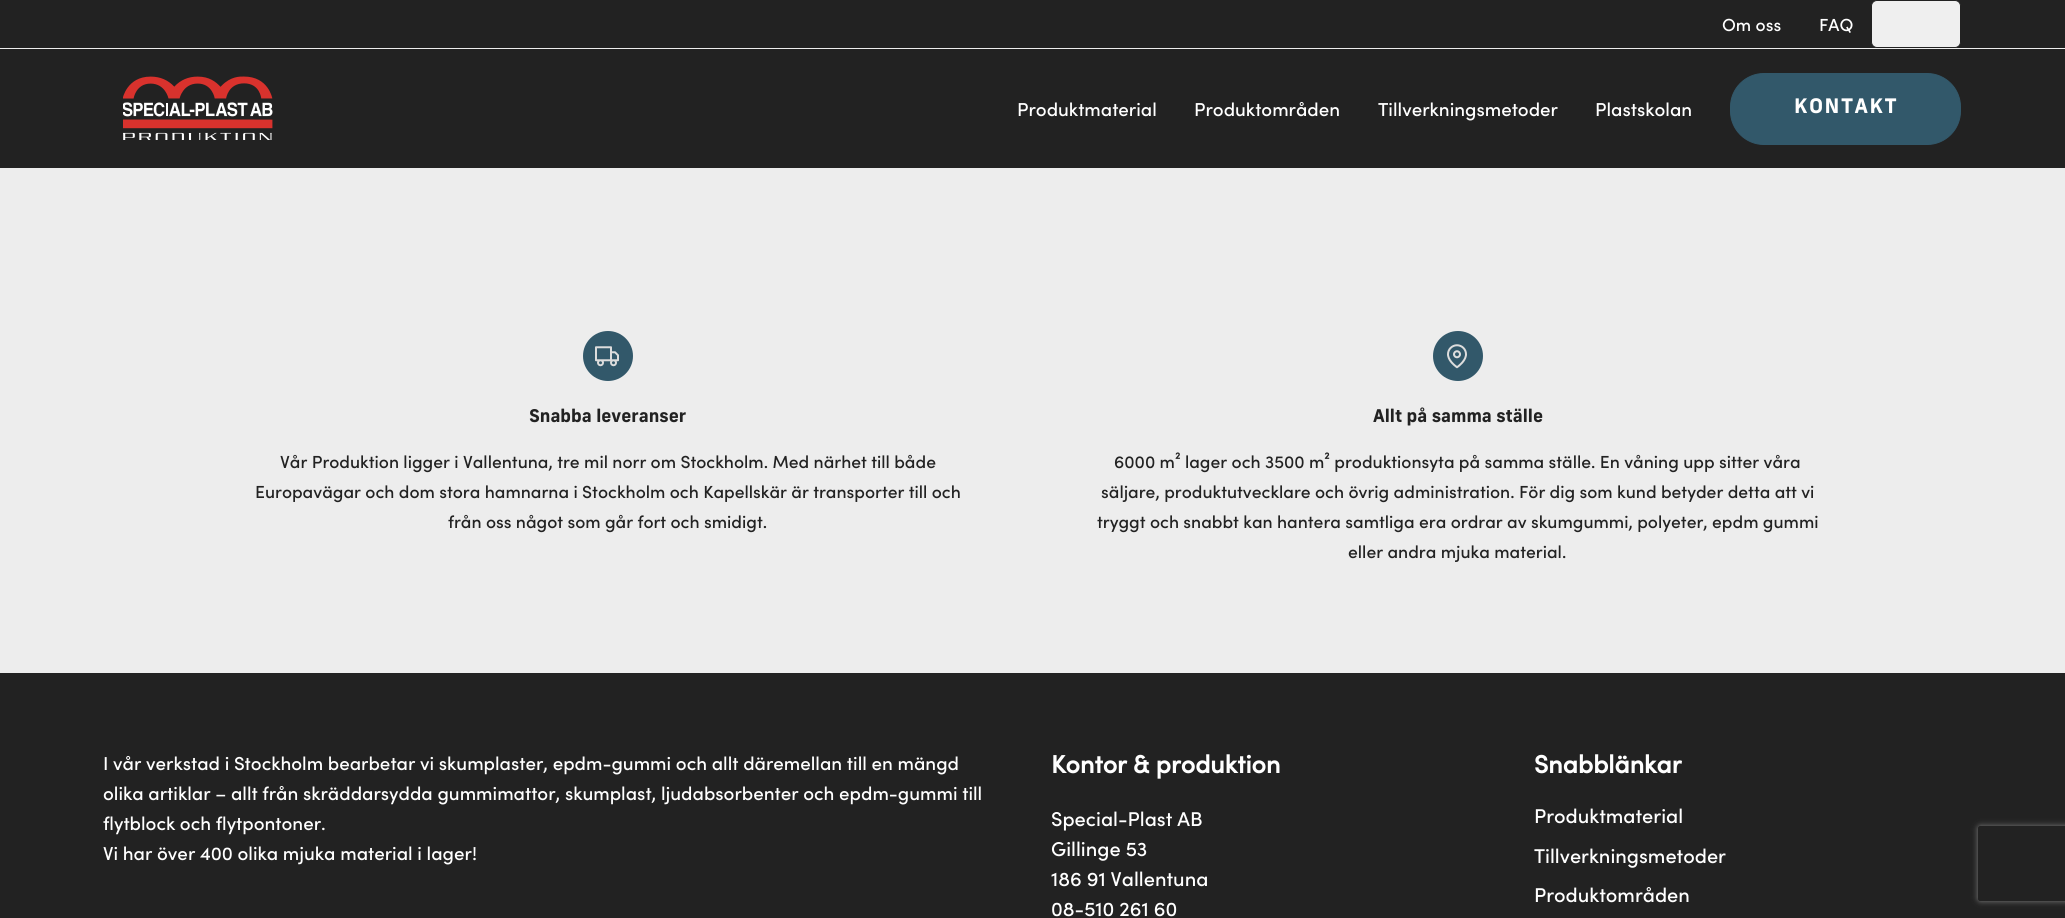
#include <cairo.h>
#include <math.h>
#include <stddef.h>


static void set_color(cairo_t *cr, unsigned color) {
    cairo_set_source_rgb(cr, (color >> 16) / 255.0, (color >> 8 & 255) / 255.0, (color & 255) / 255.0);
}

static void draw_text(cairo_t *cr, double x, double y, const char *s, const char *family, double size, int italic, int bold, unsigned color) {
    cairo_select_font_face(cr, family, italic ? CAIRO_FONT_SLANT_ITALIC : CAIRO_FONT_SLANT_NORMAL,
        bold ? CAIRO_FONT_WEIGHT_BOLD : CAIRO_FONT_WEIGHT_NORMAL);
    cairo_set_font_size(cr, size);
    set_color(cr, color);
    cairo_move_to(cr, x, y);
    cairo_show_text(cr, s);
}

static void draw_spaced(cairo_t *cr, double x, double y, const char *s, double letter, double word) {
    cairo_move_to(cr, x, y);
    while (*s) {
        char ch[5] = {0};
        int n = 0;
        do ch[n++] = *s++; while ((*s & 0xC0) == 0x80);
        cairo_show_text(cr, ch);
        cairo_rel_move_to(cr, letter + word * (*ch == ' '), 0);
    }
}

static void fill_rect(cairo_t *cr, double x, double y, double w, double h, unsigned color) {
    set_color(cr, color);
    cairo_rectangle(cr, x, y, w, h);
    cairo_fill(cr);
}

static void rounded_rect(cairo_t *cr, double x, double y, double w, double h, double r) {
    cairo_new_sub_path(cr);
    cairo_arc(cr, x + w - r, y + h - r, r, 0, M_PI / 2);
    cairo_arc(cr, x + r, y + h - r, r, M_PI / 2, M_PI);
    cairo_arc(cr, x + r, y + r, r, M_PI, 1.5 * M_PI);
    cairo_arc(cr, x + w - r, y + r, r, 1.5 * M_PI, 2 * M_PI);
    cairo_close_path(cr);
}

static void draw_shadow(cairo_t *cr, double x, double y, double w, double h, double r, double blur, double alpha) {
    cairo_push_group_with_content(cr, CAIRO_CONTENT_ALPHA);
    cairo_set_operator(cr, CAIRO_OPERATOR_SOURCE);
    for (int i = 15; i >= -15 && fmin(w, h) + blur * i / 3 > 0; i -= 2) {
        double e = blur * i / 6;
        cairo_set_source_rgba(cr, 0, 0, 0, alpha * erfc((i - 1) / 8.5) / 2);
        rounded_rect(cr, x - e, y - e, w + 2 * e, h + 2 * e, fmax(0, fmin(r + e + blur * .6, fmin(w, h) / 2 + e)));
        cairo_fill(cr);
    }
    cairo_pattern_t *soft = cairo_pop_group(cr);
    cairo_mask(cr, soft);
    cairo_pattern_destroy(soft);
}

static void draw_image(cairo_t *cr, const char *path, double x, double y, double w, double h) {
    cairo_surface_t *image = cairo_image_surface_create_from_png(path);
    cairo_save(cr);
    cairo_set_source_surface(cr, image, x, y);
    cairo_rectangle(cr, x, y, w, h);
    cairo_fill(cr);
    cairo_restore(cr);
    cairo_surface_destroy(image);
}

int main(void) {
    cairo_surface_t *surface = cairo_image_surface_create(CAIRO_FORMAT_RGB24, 2065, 918);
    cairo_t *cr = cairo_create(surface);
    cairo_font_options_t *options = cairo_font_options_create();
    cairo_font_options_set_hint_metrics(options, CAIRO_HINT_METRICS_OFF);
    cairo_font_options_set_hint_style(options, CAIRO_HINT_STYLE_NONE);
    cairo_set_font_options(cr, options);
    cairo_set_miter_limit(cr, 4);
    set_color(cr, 0xEDEDED);
    cairo_paint(cr);
    fill_rect(cr, 0, 0, 2065, 168, 0x222222);
    fill_rect(cr, 0, 48, 2065, 1, 0xEDEDED);
    draw_text(cr, 1722, 31, "Om oss", "Sofia Medium", 17.5, 0, 0, 0xFFFFFF);
    draw_text(cr, 1819, 31, "FAQ", "Sofia Medium", 17.5, 0, 0, 0xFFFFFF);
    set_color(cr, 0xEFEFEF);
    rounded_rect(cr, 1871.5, 0.5, 89, 47, 5.5);
    cairo_fill_preserve(cr);
    set_color(cr, 0x222222);
    cairo_set_line_width(cr, 1);
    cairo_stroke(cr);
    draw_image(cr, "assets/img1.png", 123, 76, 150, 64);
    draw_text(cr, 1017, 116, "Produktmaterial", "Sofia Medium", 18.75, 0, 0, 0xFFFFFF);
    draw_text(cr, 1194, 116, "Produktområden", "Sofia Medium", 18.75, 0, 0, 0xFFFFFF);
    draw_text(cr, 1378, 116, "Tillverkningsmetoder", "Sofia Medium", 18.75, 0, 0, 0xFFFFFF);
    draw_text(cr, 1595, 116, "Plastskolan", "Sofia Medium", 18.75, 0, 0, 0xFFFFFF);
    set_color(cr, 0x32586A);
    rounded_rect(cr, 1730.5, 73.5, 230, 71, 33.5);
    cairo_fill_preserve(cr);
    cairo_stroke(cr);
    cairo_select_font_face(cr, "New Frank", CAIRO_FONT_SLANT_NORMAL, CAIRO_FONT_WEIGHT_BOLD);
    cairo_set_font_size(cr, 20);
    set_color(cr, 0xFFFFFF);
    draw_spaced(cr, 1794, 113, "KONTAKT", 1.5, 0);
    set_color(cr, 0x32586A);
    cairo_new_path(cr);
    cairo_arc(cr, 608, 356, 25, 0, 2 * M_PI);
    cairo_fill(cr);
    draw_image(cr, "assets/img2.png", 595, 346, 24, 21);
    draw_text(cr, 529, 422, "Snabba leveranser", "New Frank", 17.5, 0, 1, 0x222222);
    draw_text(cr, 280, 468, "Vår Produktion ligger i Vallentuna, tre mil norr om Stockholm. Med närhet till både", "Sofia Medium", 17.5, 0, 0, 0x222222);
    draw_text(cr, 255, 498, "Europavägar och dom stora hamnarna i Stockholm och Kapellskär är transporter till och", "Sofia Medium", 17.5, 0, 0, 0x222222);
    draw_text(cr, 448, 528, "från oss något som går fort och smidigt.", "Sofia Medium", 17.5, 0, 0, 0x222222);
    set_color(cr, 0x32586A);
    cairo_new_path(cr);
    cairo_arc(cr, 1458, 356, 25, 0, 2 * M_PI);
    cairo_fill(cr);
    draw_image(cr, "assets/img3.png", 1447, 344, 20, 25);
    draw_text(cr, 1373, 422, "Allt på samma ställe", "New Frank", 17.5, 0, 1, 0x222222);
    draw_text(cr, 1114, 468, "6000 m² lager och 3500 m² produktionsyta på samma ställe. En våning upp sitter våra", "Sofia Medium", 17.5, 0, 0, 0x222222);
    draw_text(cr, 1101, 498, "säljare, produktutvecklare och övrig administration. För dig som kund betyder detta att vi", "Sofia Medium", 17.5, 0, 0, 0x222222);
    draw_text(cr, 1097, 528, "tryggt och snabbt kan hantera samtliga era ordrar av skumgummi, polyeter, epdm gummi", "Sofia Medium", 17.5, 0, 0, 0x222222);
    draw_text(cr, 1348, 558, "eller andra mjuka material.", "Sofia Medium", 17.5, 0, 0, 0x222222);
    fill_rect(cr, 0, 673, 2065, 245, 0x222222);
    draw_text(cr, 103, 770, "I vår verkstad i Stockholm bearbetar vi skumplaster, epdm-gummi och allt däremellan till en mängd", "Sofia Medium", 18.75, 0, 0, 0xFFFFFF);
    draw_text(cr, 103, 800, "olika artiklar – allt från skräddarsydda gummimattor, skumplast, ljudabsorbenter och epdm-gummi till", "Sofia Medium", 18.75, 0, 0, 0xFFFFFF);
    draw_text(cr, 103, 830, "flytblock och flytpontoner.", "Sofia Medium", 18.75, 0, 0, 0xFFFFFF);
    draw_text(cr, 103, 860, "Vi har över 400 olika mjuka material i lager!", "Sofia Medium", 18.75, 0, 0, 0xFFFFFF);
    draw_text(cr, 1051, 773, "Kontor & produktion", "Sofia", 25, 0, 1, 0xFFFFFF);
    draw_text(cr, 1051, 826, "Special-Plast AB", "Sofia Medium", 20, 0, 0, 0xFFFFFF);
    draw_text(cr, 1051, 856, "Gillinge 53", "Sofia Medium", 20, 0, 0, 0xFFFFFF);
    draw_text(cr, 1051, 886, "186 91 Vallentuna", "Sofia Medium", 20, 0, 0, 0xFFFFFF);
    draw_text(cr, 1051, 916, "08-510 261 60", "Sofia Medium", 20, 0, 0, 0xFFFFFF);
    draw_text(cr, 1534, 773, "Snabblänkar", "Sofia", 25, 0, 1, 0xFFFFFF);
    draw_text(cr, 1534, 823, "Produktmaterial", "Sofia Medium", 20, 0, 0, 0xFFFFFF);
    draw_text(cr, 1534, 863, "Tillverkningsmetoder", "Sofia Medium", 20, 0, 0, 0xFFFFFF);
    draw_text(cr, 1534, 902, "Produktområden", "Sofia Medium", 20, 0, 0, 0xFFFFFF);
    cairo_save(cr);
    cairo_set_fill_rule(cr, CAIRO_FILL_RULE_EVEN_ODD);
    cairo_new_path(cr);
    cairo_move_to(cr, 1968, 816);
    cairo_line_to(cr, 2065, 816);
    cairo_line_to(cr, 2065, 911);
    cairo_line_to(cr, 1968, 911);
    cairo_close_path(cr);
    cairo_move_to(cr, 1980.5, 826);
    cairo_line_to(cr, 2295.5, 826);
    cairo_curve_to(cr, 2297, 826, 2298, 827, 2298, 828.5);
    cairo_line_to(cr, 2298, 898.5);
    cairo_curve_to(cr, 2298, 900, 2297, 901, 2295.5, 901);
    cairo_line_to(cr, 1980.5, 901);
    cairo_curve_to(cr, 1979, 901, 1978, 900, 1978, 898.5);
    cairo_line_to(cr, 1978, 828.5);
    cairo_curve_to(cr, 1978, 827, 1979, 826, 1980.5, 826);
    cairo_close_path(cr);
    cairo_clip(cr);
    set_color(cr, 0x808080);
    draw_shadow(cr, 1978, 826, 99, 75, 2.5, 3, 1);
    cairo_restore(cr);
    cairo_surface_write_to_png(surface, "output.png");
    cairo_font_options_destroy(options);
    cairo_destroy(cr);
    cairo_surface_destroy(surface);
    return 0;
}
